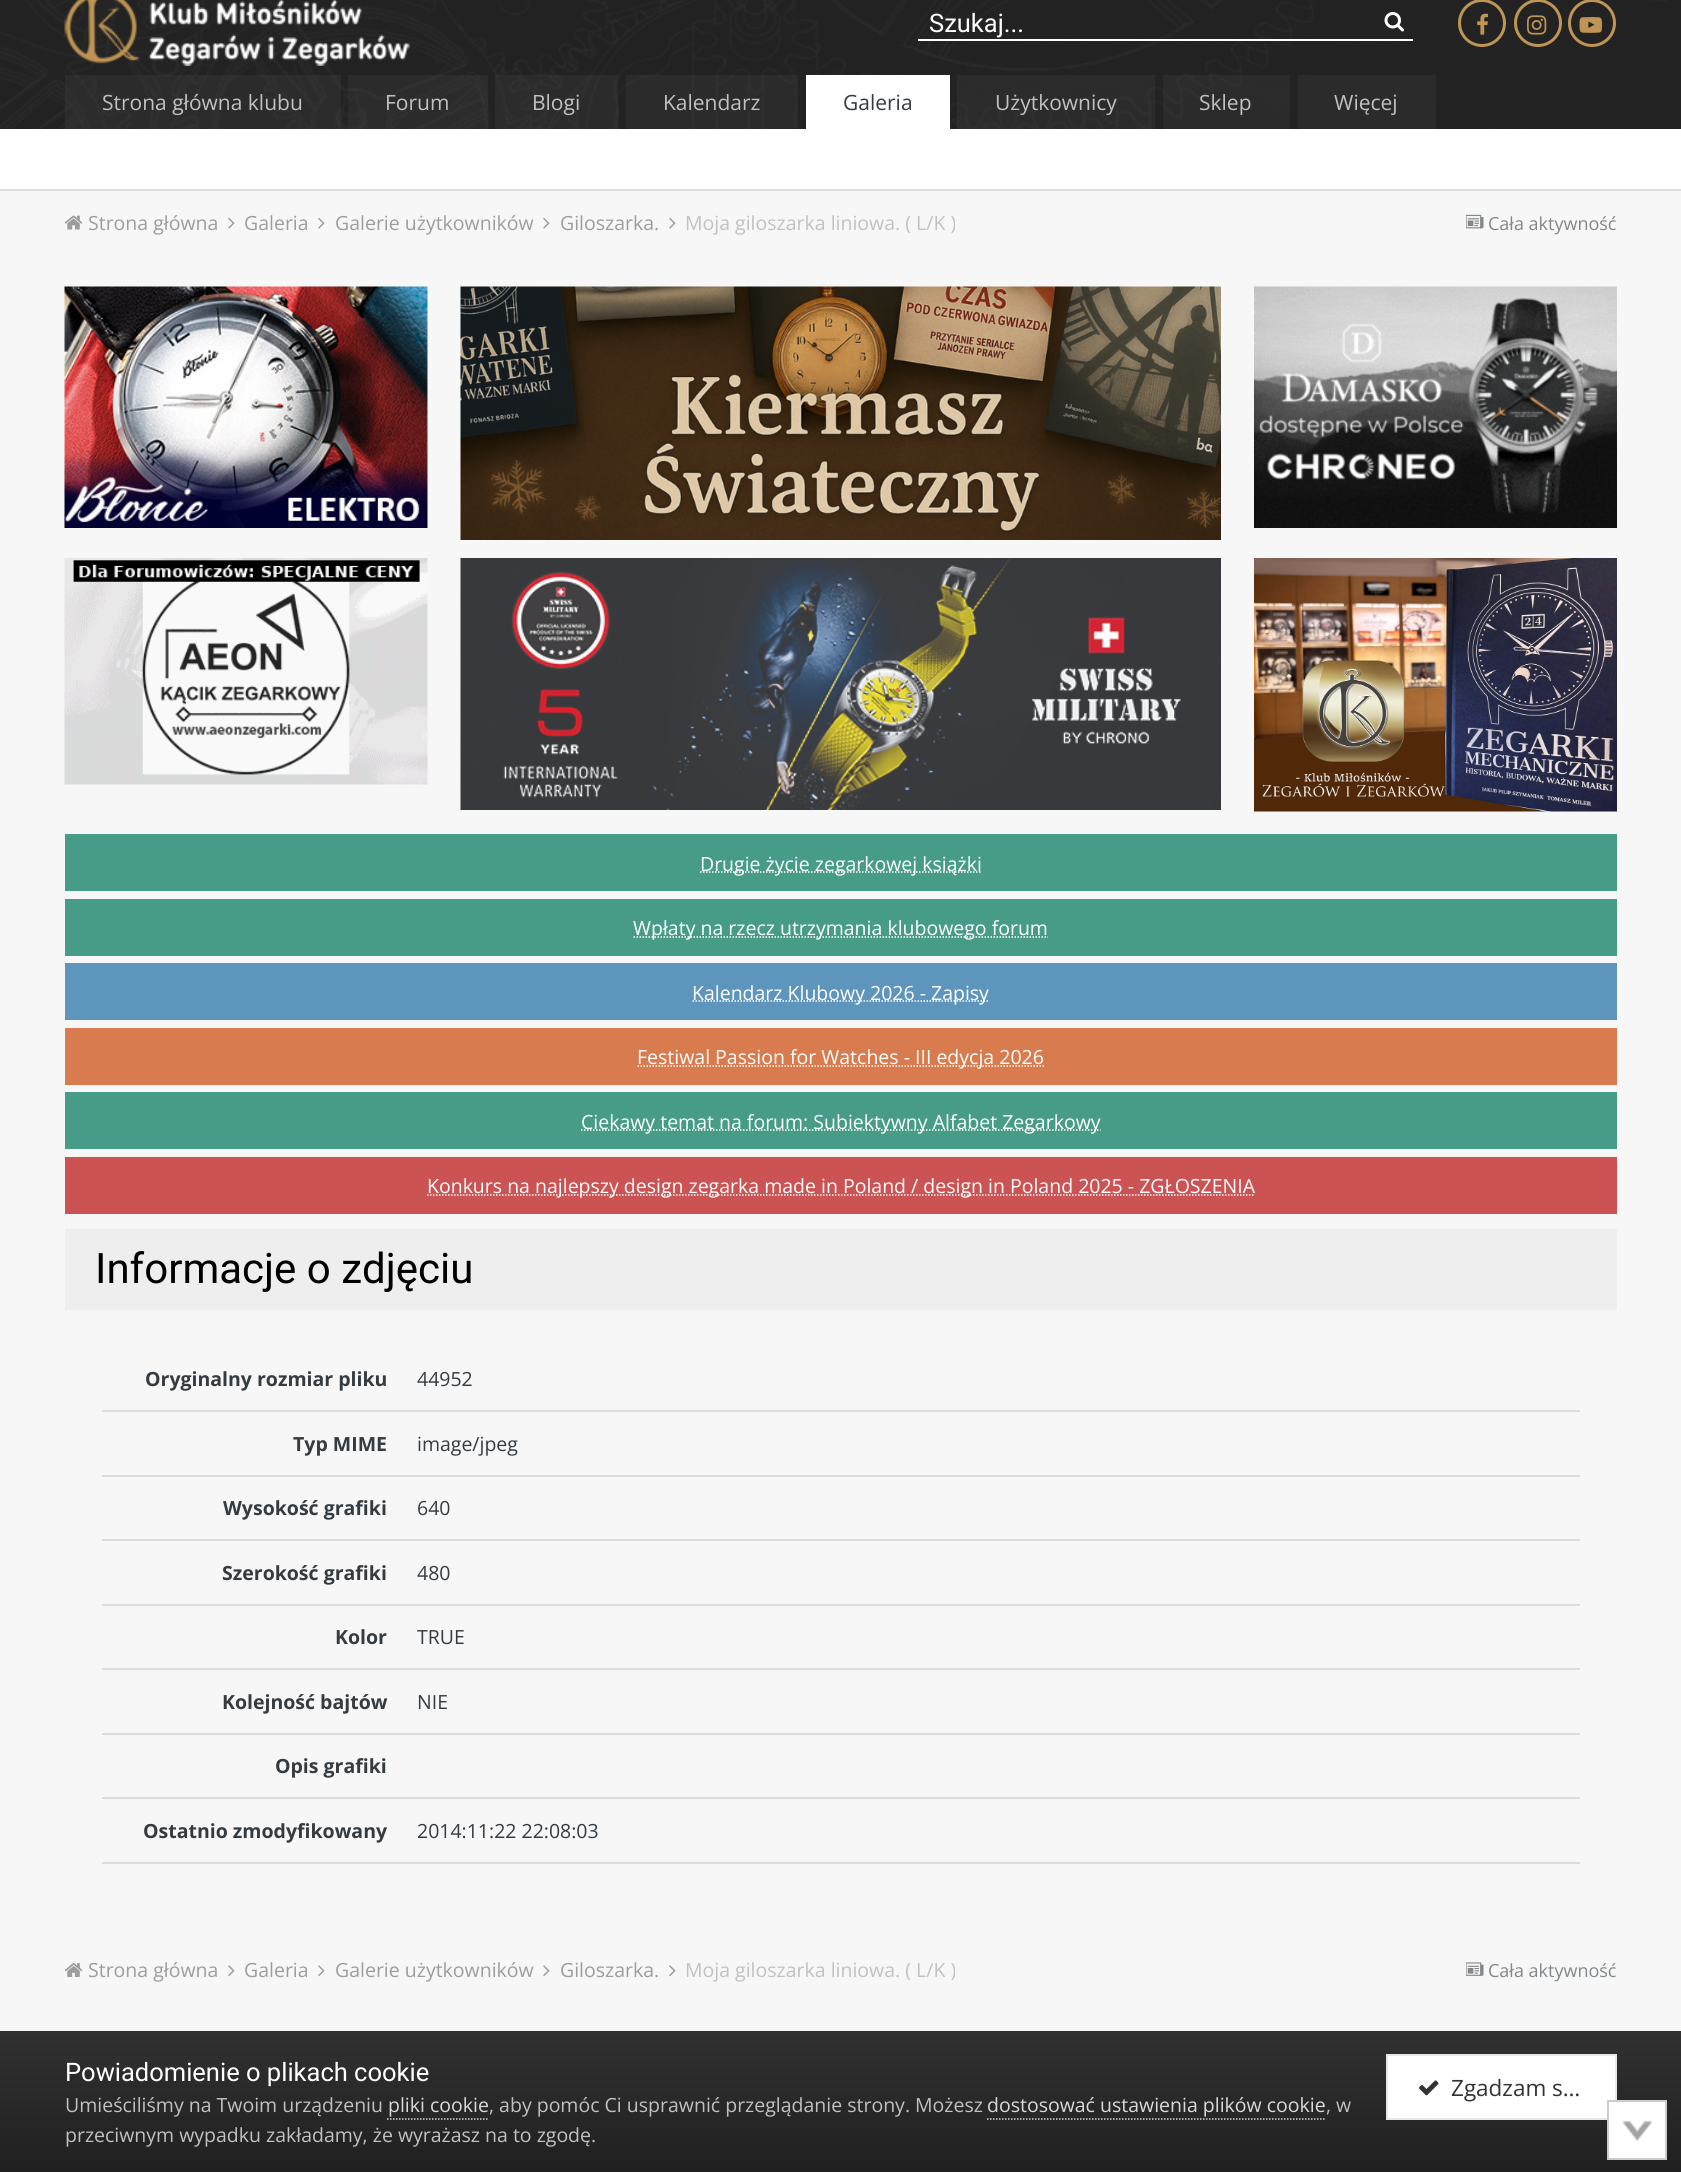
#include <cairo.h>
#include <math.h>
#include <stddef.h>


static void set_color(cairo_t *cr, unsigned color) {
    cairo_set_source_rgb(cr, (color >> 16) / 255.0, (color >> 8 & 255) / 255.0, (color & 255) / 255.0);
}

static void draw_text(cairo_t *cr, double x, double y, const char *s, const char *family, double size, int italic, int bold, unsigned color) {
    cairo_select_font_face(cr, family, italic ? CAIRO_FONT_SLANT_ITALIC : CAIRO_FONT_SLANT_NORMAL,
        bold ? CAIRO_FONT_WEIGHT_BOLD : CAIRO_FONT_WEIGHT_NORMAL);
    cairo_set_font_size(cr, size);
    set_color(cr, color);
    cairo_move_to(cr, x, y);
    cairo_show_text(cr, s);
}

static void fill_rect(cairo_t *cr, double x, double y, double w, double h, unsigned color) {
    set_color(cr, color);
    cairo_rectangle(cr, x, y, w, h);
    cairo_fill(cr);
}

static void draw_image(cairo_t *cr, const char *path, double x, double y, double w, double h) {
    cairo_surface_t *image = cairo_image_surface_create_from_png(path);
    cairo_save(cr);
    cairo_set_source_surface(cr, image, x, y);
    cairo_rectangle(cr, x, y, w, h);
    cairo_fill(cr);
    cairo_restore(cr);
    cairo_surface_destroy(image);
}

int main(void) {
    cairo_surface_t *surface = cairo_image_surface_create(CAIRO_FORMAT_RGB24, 1681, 2172);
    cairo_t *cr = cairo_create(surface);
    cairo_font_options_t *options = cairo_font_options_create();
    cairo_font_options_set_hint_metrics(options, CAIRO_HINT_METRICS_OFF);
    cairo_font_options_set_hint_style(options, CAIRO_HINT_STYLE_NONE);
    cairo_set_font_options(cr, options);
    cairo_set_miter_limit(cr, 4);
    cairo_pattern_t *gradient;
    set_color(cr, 0xF7F7F7);
    cairo_paint(cr);
    fill_rect(cr, 0, 189, 1681, 2, 0xDEDEDE);
    fill_rect(cr, 1667, 0, 14, 129, 0x222222);
    draw_image(cr, "assets/img1.png", 0, 0, 1667, 129);
    draw_image(cr, "assets/img2.png", 64, 0, 346, 66);
    fill_rect(cr, 918, 39, 495, 2, 0xFFFFFF);
    draw_text(cr, 929, 32, "Szukaj...", "Roboto", 25.5, 0, 0, 0xFFFFFF);
    draw_image(cr, "assets/img3.png", 1384, 12, 20, 20);
    cairo_arc(cr, 1482, 23, 22.5, 0, 2 * M_PI);
    set_color(cr, 0xBE9555);
    cairo_set_line_width(cr, 3);
    cairo_stroke(cr);
    draw_image(cr, "assets/img4.png", 1477, 13, 12, 22);
    cairo_arc(cr, 1538, 23, 22.5, 0, 2 * M_PI);
    cairo_stroke(cr);
    draw_image(cr, "assets/img5.png", 1527, 15, 20, 20);
    cairo_arc(cr, 1592, 23, 22.5, 0, 2 * M_PI);
    cairo_stroke(cr);
    draw_image(cr, "assets/img6.png", 1579, 17, 23, 16);
    fill_rect(cr, 0, 129, 1681, 60, 0xFFFFFF);
    cairo_set_source_rgba(cr, 1, 1, 1, 0.04);
    cairo_rectangle(cr, 65, 75, 276, 54);
    cairo_fill(cr);
    draw_text(cr, 102, 110, "Strona główna klubu", "Open Sans", 21, 0, 0, 0xC1C1C1);
    cairo_set_source_rgba(cr, 1, 1, 1, 0.04);
    cairo_rectangle(cr, 348, 75, 140, 54);
    cairo_fill(cr);
    draw_text(cr, 385, 110, "Forum", "Open Sans", 21, 0, 0, 0xC1C1C1);
    cairo_set_source_rgba(cr, 1, 1, 1, 0.04);
    cairo_rectangle(cr, 495, 75, 123, 54);
    cairo_fill(cr);
    draw_text(cr, 532, 110, "Blogi", "Open Sans", 21, 0, 0, 0xC1C1C1);
    cairo_set_source_rgba(cr, 1, 1, 1, 0.04);
    cairo_rectangle(cr, 626, 75, 172, 54);
    cairo_fill(cr);
    draw_text(cr, 663, 110, "Kalendarz", "Open Sans", 21, 0, 0, 0xC1C1C1);
    fill_rect(cr, 806, 75, 144, 54, 0xFFFFFF);
    draw_text(cr, 843, 110, "Galeria", "Open Sans", 21, 0, 0, 0x353C41);
    cairo_set_source_rgba(cr, 1, 1, 1, 0.04);
    cairo_rectangle(cr, 957, 75, 198, 54);
    cairo_fill(cr);
    draw_text(cr, 995, 110, "Użytkownicy", "Open Sans", 21, 0, 0, 0xC1C1C1);
    cairo_set_source_rgba(cr, 1, 1, 1, 0.04);
    cairo_rectangle(cr, 1163, 75, 127, 54);
    cairo_fill(cr);
    draw_text(cr, 1199, 110, "Sklep", "Open Sans", 21, 0, 0, 0xC1C1C1);
    fill_rect(cr, 1298, 75, 138, 54, 0x2B2B2B);
    draw_text(cr, 1334, 110, "Więcej", "Open Sans", 21, 0, 0, 0xC1C1C1);
    draw_image(cr, "assets/img7.png", 65, 215, 18, 15);
    draw_text(cr, 88, 230, "Strona główna", "Open Sans", 19.5, 0, 0, 0x9D9D9D);
    draw_image(cr, "assets/img8.png", 228, 217, 7, 12);
    draw_text(cr, 244, 230, "Galeria", "Open Sans", 19.5, 0, 0, 0x9D9D9D);
    draw_image(cr, "assets/img8.png", 318, 217, 7, 12);
    draw_text(cr, 335, 230, "Galerie użytkowników", "Open Sans", 19.5, 0, 0, 0x9D9D9D);
    draw_image(cr, "assets/img8.png", 543, 217, 7, 12);
    draw_text(cr, 560, 230, "Giloszarka.", "Open Sans", 19.5, 0, 0, 0x9D9D9D);
    draw_image(cr, "assets/img8.png", 669, 217, 7, 12);
    draw_text(cr, 685, 230, "Moja giloszarka liniowa. ( L/K )", "Open Sans", 19.5, 0, 0, 0xC1C1C1);
    draw_image(cr, "assets/img9.png", 1466, 214, 18, 15);
    draw_text(cr, 1488, 230, "Cała aktywność", "Open Sans", 18, 0, 0, 0x83878A);
    draw_image(cr, "assets/img10.png", 64, 286, 364, 242);
    draw_image(cr, "assets/img11.png", 460, 286, 761, 254);
    draw_image(cr, "assets/img12.png", 1254, 286, 363, 242);
    draw_image(cr, "assets/img13.png", 64, 558, 364, 227);
    draw_image(cr, "assets/img14.png", 460, 558, 761, 252);
    draw_image(cr, "assets/img15.png", 1254, 558, 363, 254);
    fill_rect(cr, 65, 834, 1552, 57, 0x479C87);
    cairo_new_path(cr);
    cairo_move_to(cr, 700, 872);
    cairo_line_to(cr, 981.5, 872);
    set_color(cr, 0xFFFFFF);
    cairo_set_line_width(cr, 1.5);
    cairo_set_dash(cr, (double[]){1.5, 1.5}, 2, 0);
    cairo_stroke(cr);
    draw_text(cr, 700, 871, "Drugie życie zegarkowej książki", "Open Sans", 19.5, 0, 0, 0xFFFFFF);
    fill_rect(cr, 65, 899, 1552, 57, 0x479C87);
    cairo_new_path(cr);
    cairo_move_to(cr, 633.5, 937);
    cairo_line_to(cr, 1048, 937);
    set_color(cr, 0xFFFFFF);
    cairo_stroke(cr);
    draw_text(cr, 633, 935, "Wpłaty na rzecz utrzymania klubowego forum", "Open Sans", 19.5, 0, 0, 0xFFFFFF);
    fill_rect(cr, 65, 963, 1552, 57, 0x5E95BC);
    cairo_new_path(cr);
    cairo_move_to(cr, 692.5, 1001);
    cairo_line_to(cr, 989, 1001);
    set_color(cr, 0xFFFFFF);
    cairo_stroke(cr);
    draw_text(cr, 692, 1000, "Kalendarz Klubowy 2026 - Zapisy", "Open Sans", 19.5, 0, 0, 0xFFFFFF);
    fill_rect(cr, 65, 1028, 1552, 57, 0xD87C4F);
    cairo_new_path(cr);
    cairo_move_to(cr, 637.5, 1066);
    cairo_line_to(cr, 1044, 1066);
    set_color(cr, 0xFFFFFF);
    cairo_stroke(cr);
    draw_text(cr, 637, 1064, "Festiwal Passion for Watches - III edycja 2026", "Open Sans", 19.5, 0, 0, 0xFFFFFF);
    fill_rect(cr, 65, 1092, 1552, 57, 0x479C87);
    cairo_new_path(cr);
    cairo_move_to(cr, 581, 1130);
    cairo_line_to(cr, 1100.5, 1130);
    set_color(cr, 0xFFFFFF);
    cairo_stroke(cr);
    draw_text(cr, 581, 1129, "Ciekawy temat na forum: Subiektywny Alfabet Zegarkowy", "Open Sans", 19.5, 0, 0, 0xFFFFFF);
    fill_rect(cr, 65, 1157, 1552, 57, 0xCC5353);
    cairo_new_path(cr);
    cairo_move_to(cr, 427, 1195);
    cairo_line_to(cr, 1255, 1195);
    set_color(cr, 0xFFFFFF);
    cairo_stroke(cr);
    draw_text(cr, 427, 1193, "Konkurs na najlepszy design zegarka made in Poland / design in Poland 2025 - ZGŁOSZENIA", "Open Sans", 19.5, 0, 0, 0xFFFFFF);
    fill_rect(cr, 65, 1229, 1552, 81, 0xEEEEEE);
    draw_text(cr, 95, 1283, "Informacje o zdjęciu", "Roboto", 42, 0, 0, 0x000000);
    fill_rect(cr, 102, 1410, 1478, 2, 0xDCDCDC);
    draw_text(cr, 145, 1386, "Oryginalny rozmiar pliku", "Open Sans", 19.5, 0, 1, 0x353C41);
    draw_text(cr, 417, 1386, "44952", "Open Sans", 19.5, 0, 0, 0x353C41);
    fill_rect(cr, 102, 1475, 1478, 2, 0xDCDCDC);
    draw_text(cr, 293, 1451, "Typ MIME", "Open Sans", 19.5, 0, 1, 0x353C41);
    draw_text(cr, 417, 1451, "image/jpeg", "Open Sans", 19.5, 0, 0, 0x353C41);
    fill_rect(cr, 102, 1539, 1478, 2, 0xDCDCDC);
    draw_text(cr, 223, 1515, "Wysokość grafiki", "Open Sans", 19.5, 0, 1, 0x353C41);
    draw_text(cr, 417, 1515, "640", "Open Sans", 19.5, 0, 0, 0x353C41);
    fill_rect(cr, 102, 1604, 1478, 2, 0xDCDCDC);
    draw_text(cr, 222, 1580, "Szerokość grafiki", "Open Sans", 19.5, 0, 1, 0x353C41);
    draw_text(cr, 417, 1580, "480", "Open Sans", 19.5, 0, 0, 0x353C41);
    fill_rect(cr, 102, 1668, 1478, 2, 0xDCDCDC);
    draw_text(cr, 335, 1644, "Kolor", "Open Sans", 19.5, 0, 1, 0x353C41);
    draw_text(cr, 417, 1644, "TRUE", "Open Sans", 19.5, 0, 0, 0x353C41);
    fill_rect(cr, 102, 1733, 1478, 2, 0xDCDCDC);
    draw_text(cr, 222, 1709, "Kolejność bajtów", "Open Sans", 19.5, 0, 1, 0x353C41);
    draw_text(cr, 417, 1709, "NIE", "Open Sans", 19.5, 0, 0, 0x353C41);
    fill_rect(cr, 102, 1797, 1478, 2, 0xDCDCDC);
    draw_text(cr, 275, 1773, "Opis grafiki", "Open Sans", 19.5, 0, 1, 0x353C41);
    fill_rect(cr, 102, 1862, 1478, 2, 0xDCDCDC);
    draw_text(cr, 143, 1838, "Ostatnio zmodyfikowany", "Open Sans", 19.5, 0, 1, 0x353C41);
    draw_text(cr, 417, 1838, "2014:11:22 22:08:03", "Open Sans", 19.5, 0, 0, 0x353C41);
    draw_image(cr, "assets/img16.png", 65, 1963, 18, 14);
    draw_text(cr, 88, 1977, "Strona główna", "Open Sans", 19.5, 0, 0, 0x9D9D9D);
    draw_image(cr, "assets/img17.png", 228, 1965, 7, 11);
    draw_text(cr, 244, 1977, "Galeria", "Open Sans", 19.5, 0, 0, 0x9D9D9D);
    draw_image(cr, "assets/img17.png", 318, 1965, 7, 11);
    draw_text(cr, 335, 1977, "Galerie użytkowników", "Open Sans", 19.5, 0, 0, 0x9D9D9D);
    draw_image(cr, "assets/img17.png", 543, 1965, 7, 11);
    draw_text(cr, 560, 1977, "Giloszarka.", "Open Sans", 19.5, 0, 0, 0x9D9D9D);
    draw_image(cr, "assets/img17.png", 669, 1965, 7, 11);
    draw_text(cr, 685, 1977, "Moja giloszarka liniowa. ( L/K )", "Open Sans", 19.5, 0, 0, 0xC1C1C1);
    draw_image(cr, "assets/img18.png", 1466, 1962, 18, 14);
    draw_text(cr, 1488, 1977, "Cała aktywność", "Open Sans", 18, 0, 0, 0x83878A);
    gradient = cairo_pattern_create_linear(841, 2031, 841, 2172);
    cairo_pattern_add_color_stop_rgba(gradient, 0, 0.192, 0.192, 0.192, 1);
    cairo_pattern_add_color_stop_rgba(gradient, 1, 0.125, 0.125, 0.125, 1);
    cairo_set_source(cr, gradient);
    cairo_pattern_destroy(gradient);
    cairo_rectangle(cr, 0, 2031, 1681, 141);
    cairo_fill(cr);
    draw_text(cr, 65, 2081, "Powiadomienie o plikach cookie", "Roboto", 25.5, 0, 0, 0xFFFFFF);
    draw_text(cr, 65, 2112, "Umieściliśmy na Twoim urządzeniu", "Open Sans", 19.5, 0, 0, 0xC1C1C1);
    draw_text(cr, 388, 2112, "pliki cookie", "Open Sans", 19.5, 0, 0, 0xDADADA);
    cairo_new_path(cr);
    cairo_move_to(cr, 387, 2119);
    cairo_line_to(cr, 489, 2119);
    cairo_stroke(cr);
    draw_text(cr, 489, 2112, ", aby pomóc Ci usprawnić przeglądanie strony. Możesz", "Open Sans", 19.5, 0, 0, 0xC1C1C1);
    draw_text(cr, 987, 2112, "dostosować ustawienia plików cookie", "Open Sans", 19.5, 0, 0, 0xDADADA);
    cairo_new_path(cr);
    cairo_move_to(cr, 987, 2119);
    cairo_line_to(cr, 1326, 2119);
    cairo_stroke(cr);
    draw_text(cr, 1326, 2112, ", w", "Open Sans", 19.5, 0, 0, 0xC1C1C1);
    draw_text(cr, 65, 2142, "przeciwnym wypadku zakładamy, że wyrażasz na to zgodę.", "Open Sans", 19.5, 0, 0, 0xC1C1C1);
    set_color(cr, 0xFFFFFF);
    cairo_rectangle(cr, 1387, 2055, 229, 64);
    cairo_fill_preserve(cr);
    set_color(cr, 0xE8E8E8);
    cairo_set_line_width(cr, 2);
    cairo_set_dash(cr, NULL, 0, 0);
    cairo_stroke(cr);
    draw_image(cr, "assets/img19.png", 1419, 2080, 20, 16);
    draw_text(cr, 1451, 2096, "Zgadzam s…", "Open Sans", 22.5, 0, 0, 0x333333);
    fill_rect(cr, 1609, 2102, 56, 56, 0xFFFFFF);
    draw_image(cr, "assets/img20.png", 1622, 2120, 30, 22);
    cairo_rectangle(cr, 1608, 2101, 58, 58);
    set_color(cr, 0xCCCCCC);
    cairo_stroke(cr);
    cairo_surface_write_to_png(surface, "output.png");
    cairo_font_options_destroy(options);
    cairo_destroy(cr);
    cairo_surface_destroy(surface);
    return 0;
}
